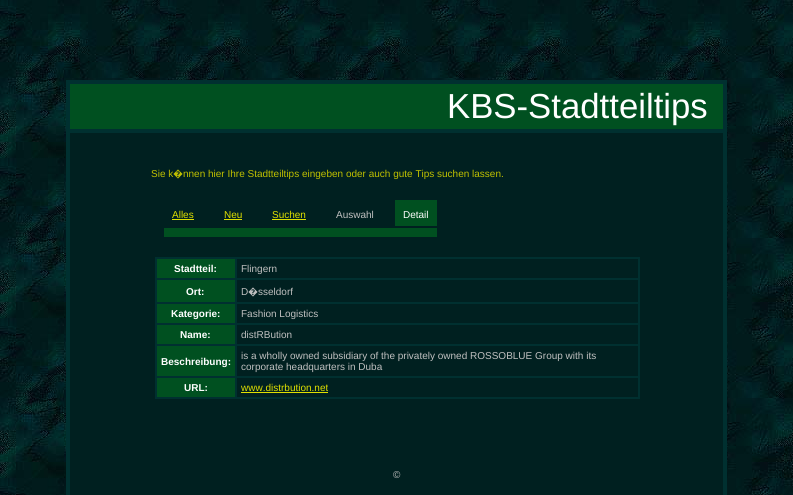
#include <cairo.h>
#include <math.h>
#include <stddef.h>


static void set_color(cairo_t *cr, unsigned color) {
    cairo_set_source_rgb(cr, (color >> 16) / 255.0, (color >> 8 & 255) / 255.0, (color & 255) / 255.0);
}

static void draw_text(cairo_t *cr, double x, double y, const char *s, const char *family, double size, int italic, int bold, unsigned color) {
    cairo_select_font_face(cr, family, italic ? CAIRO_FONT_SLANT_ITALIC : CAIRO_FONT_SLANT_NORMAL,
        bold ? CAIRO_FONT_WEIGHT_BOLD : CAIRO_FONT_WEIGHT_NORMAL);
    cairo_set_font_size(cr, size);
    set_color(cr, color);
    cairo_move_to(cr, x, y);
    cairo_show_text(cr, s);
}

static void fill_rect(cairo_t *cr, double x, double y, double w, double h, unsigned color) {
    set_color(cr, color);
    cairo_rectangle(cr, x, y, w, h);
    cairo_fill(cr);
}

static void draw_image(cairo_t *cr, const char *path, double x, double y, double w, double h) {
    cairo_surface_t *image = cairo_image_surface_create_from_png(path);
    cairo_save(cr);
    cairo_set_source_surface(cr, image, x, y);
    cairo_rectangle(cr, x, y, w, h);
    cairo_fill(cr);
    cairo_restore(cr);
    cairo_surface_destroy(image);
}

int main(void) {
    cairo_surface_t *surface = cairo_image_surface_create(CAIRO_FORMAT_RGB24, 793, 495);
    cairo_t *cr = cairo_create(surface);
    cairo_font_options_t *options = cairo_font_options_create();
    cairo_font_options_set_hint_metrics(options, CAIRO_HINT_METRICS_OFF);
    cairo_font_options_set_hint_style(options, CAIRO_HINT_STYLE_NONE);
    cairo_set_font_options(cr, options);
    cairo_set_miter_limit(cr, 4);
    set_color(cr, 0xFFFFFF);
    cairo_paint(cr);
    draw_image(cr, "assets/img1.png", 0, 0, 793, 495);
    fill_rect(cr, 66, 80, 661, 415, 0x003030);
    fill_rect(cr, 70, 84, 653, 45, 0x005020);
    draw_text(cr, 447, 118, "KBS-Stadtteiltips", "Liberation Sans", 34.75, 0, 0, 0xFFFFFF);
    fill_rect(cr, 70, 133, 653, 362, 0x002020);
    draw_text(cr, 151, 177, "Sie k", "Liberation Sans", 10, 0, 0, 0xC0C000);
    draw_text(cr, 173, 177, "�", "Noto Sans", 10, 0, 0, 0xC0C000);
    draw_text(cr, 183, 177, "nnen hier Ihre Stadtteiltips eingeben oder auch gute Tips suchen lassen.", "Liberation Sans", 10, 0, 0, 0xC0C000);
    draw_text(cr, 172, 218, "Alles", "Liberation Sans", 10, 0, 0, 0xE0E000);
    fill_rect(cr, 172, 219, 22, 1, 0xE0E000);
    draw_text(cr, 224, 218, "Neu", "Liberation Sans", 10, 0, 0, 0xE0E000);
    fill_rect(cr, 224, 219, 18, 1, 0xE0E000);
    draw_text(cr, 272, 218, "Suchen", "Liberation Sans", 10, 0, 0, 0xE0E000);
    fill_rect(cr, 272, 219, 34, 1, 0xE0E000);
    draw_text(cr, 336, 218, "Auswahl", "Liberation Sans", 10, 0, 0, 0xC0C0C0);
    fill_rect(cr, 395, 200, 42, 26, 0x005020);
    draw_text(cr, 403, 218, "Detail", "Liberation Sans", 10, 0, 0, 0xFFFFFF);
    fill_rect(cr, 164, 228, 273, 9, 0x005020);
    fill_rect(cr, 155, 257, 485, 142, 0x003030);
    fill_rect(cr, 157, 259, 78, 19, 0x005020);
    draw_text(cr, 174, 272, "Stadtteil:", "Liberation Sans", 10, 0, 1, 0xFFFFFF);
    fill_rect(cr, 237, 259, 401, 19, 0x002020);
    draw_text(cr, 241, 272, "Flingern", "Liberation Sans", 10, 0, 0, 0xC0C0C0);
    fill_rect(cr, 157, 280, 78, 22, 0x005020);
    draw_text(cr, 186, 295, "Ort:", "Liberation Sans", 10, 0, 1, 0xFFFFFF);
    fill_rect(cr, 237, 280, 401, 22, 0x002020);
    draw_text(cr, 241, 295, "D", "Liberation Sans", 10, 0, 0, 0xC0C0C0);
    draw_text(cr, 248, 295, "�", "Noto Sans", 10, 0, 0, 0xC0C0C0);
    draw_text(cr, 258, 295, "sseldorf", "Liberation Sans", 10, 0, 0, 0xC0C0C0);
    fill_rect(cr, 157, 304, 78, 19, 0x005020);
    draw_text(cr, 171, 317, "Kategorie:", "Liberation Sans", 10, 0, 1, 0xFFFFFF);
    fill_rect(cr, 237, 304, 401, 19, 0x002020);
    draw_text(cr, 241, 317, "Fashion Logistics", "Liberation Sans", 10, 0, 0, 0xC0C0C0);
    fill_rect(cr, 157, 325, 78, 19, 0x005020);
    draw_text(cr, 180, 338, "Name:", "Liberation Sans", 10, 0, 1, 0xFFFFFF);
    fill_rect(cr, 237, 325, 401, 19, 0x002020);
    draw_text(cr, 241, 338, "distRBution", "Liberation Sans", 10, 0, 0, 0xC0C0C0);
    fill_rect(cr, 157, 346, 78, 30, 0x005020);
    draw_text(cr, 161, 365, "Beschreibung:", "Liberation Sans", 10, 0, 1, 0xFFFFFF);
    fill_rect(cr, 237, 346, 401, 30, 0x002020);
    draw_text(cr, 241, 359, "is a wholly owned subsidiary of the privately owned ROSSOBLUE Group with its", "Liberation Sans", 10, 0, 0, 0xC0C0C0);
    draw_text(cr, 241, 370, "corporate headquarters in Duba", "Liberation Sans", 10, 0, 0, 0xC0C0C0);
    fill_rect(cr, 157, 378, 78, 19, 0x005020);
    draw_text(cr, 184, 391, "URL:", "Liberation Sans", 10, 0, 1, 0xFFFFFF);
    fill_rect(cr, 237, 378, 401, 19, 0x002020);
    draw_text(cr, 241, 391, "www.distrbution.net", "Liberation Sans", 10, 0, 0, 0xE0E000);
    fill_rect(cr, 241, 392, 87, 1, 0xE0E000);
    draw_text(cr, 393, 478, "©", "Liberation Sans", 10, 0, 0, 0xC0C0C0);
    cairo_surface_write_to_png(surface, "output.png");
    cairo_font_options_destroy(options);
    cairo_destroy(cr);
    cairo_surface_destroy(surface);
    return 0;
}
